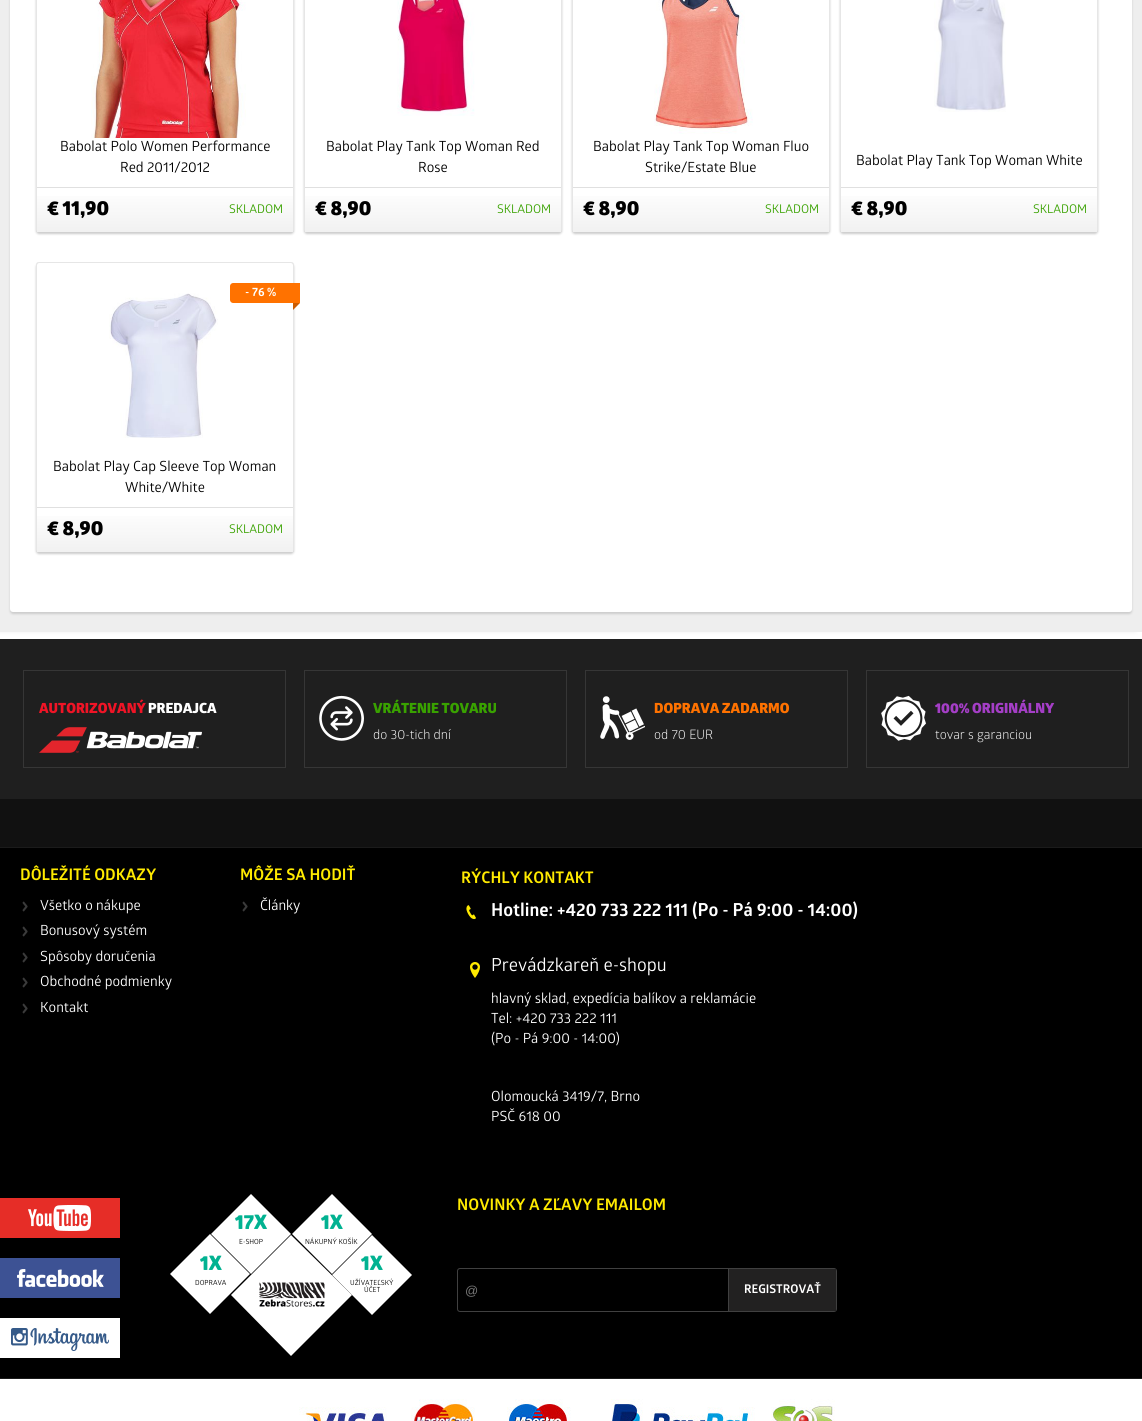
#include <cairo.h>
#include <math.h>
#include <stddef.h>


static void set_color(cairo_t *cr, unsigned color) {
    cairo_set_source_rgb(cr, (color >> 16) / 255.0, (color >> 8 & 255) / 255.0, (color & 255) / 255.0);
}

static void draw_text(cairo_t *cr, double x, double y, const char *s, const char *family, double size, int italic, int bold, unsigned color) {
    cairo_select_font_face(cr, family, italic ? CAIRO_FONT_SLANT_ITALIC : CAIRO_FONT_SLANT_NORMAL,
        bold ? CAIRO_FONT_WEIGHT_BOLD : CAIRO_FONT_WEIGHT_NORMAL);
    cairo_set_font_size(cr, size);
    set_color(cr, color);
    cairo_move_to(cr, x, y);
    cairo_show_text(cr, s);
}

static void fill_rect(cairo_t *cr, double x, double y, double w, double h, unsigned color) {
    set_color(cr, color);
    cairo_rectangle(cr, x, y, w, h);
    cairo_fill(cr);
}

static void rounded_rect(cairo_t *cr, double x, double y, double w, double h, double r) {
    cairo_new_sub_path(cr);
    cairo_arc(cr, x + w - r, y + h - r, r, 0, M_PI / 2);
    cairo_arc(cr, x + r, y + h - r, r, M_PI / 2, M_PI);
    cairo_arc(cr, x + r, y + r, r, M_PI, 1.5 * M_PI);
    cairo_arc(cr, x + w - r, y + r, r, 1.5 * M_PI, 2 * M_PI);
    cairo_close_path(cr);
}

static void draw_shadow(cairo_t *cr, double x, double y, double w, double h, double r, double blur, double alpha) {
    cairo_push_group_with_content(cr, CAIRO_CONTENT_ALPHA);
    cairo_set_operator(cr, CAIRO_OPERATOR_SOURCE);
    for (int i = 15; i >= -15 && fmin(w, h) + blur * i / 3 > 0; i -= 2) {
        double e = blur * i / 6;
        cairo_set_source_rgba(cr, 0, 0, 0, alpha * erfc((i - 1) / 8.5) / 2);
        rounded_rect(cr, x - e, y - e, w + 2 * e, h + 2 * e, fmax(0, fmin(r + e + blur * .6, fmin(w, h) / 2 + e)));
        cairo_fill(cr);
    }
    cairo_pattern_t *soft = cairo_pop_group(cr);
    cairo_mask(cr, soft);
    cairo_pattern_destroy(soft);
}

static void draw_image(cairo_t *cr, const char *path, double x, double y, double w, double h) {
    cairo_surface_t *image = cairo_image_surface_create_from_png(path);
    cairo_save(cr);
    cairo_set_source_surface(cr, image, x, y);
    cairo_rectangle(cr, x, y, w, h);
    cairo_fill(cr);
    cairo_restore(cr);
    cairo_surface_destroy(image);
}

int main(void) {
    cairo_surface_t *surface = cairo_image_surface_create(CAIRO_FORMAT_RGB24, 1142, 1421);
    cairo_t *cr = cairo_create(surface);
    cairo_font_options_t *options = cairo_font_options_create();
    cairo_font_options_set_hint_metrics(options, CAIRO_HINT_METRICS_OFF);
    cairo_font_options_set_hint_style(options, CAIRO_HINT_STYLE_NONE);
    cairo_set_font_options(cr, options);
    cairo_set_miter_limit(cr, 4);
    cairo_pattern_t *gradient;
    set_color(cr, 0xFFFFFF);
    cairo_paint(cr);
    set_color(cr, 0xD1D1D1);
    draw_shadow(cr, -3, -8, 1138, 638, 0, 2.5, 1);
    fill_rect(cr, 0, 0, 1142, 632, 0xEEEEEE);
    set_color(cr, 0xCDCDCD);
    draw_shadow(cr, 10, -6, 1122, 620, 3, 1, 1);
    set_color(cr, 0xFFFFFF);
    rounded_rect(cr, 10, -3, 1122, 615, 3);
    cairo_fill(cr);
    set_color(cr, 0xCDCDCD);
    draw_shadow(cr, 36, -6, 258, 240, 3, 1, 1);
    set_color(cr, 0xFFFFFF);
    cairo_new_path(cr);
    cairo_move_to(cr, 39, -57);
    cairo_line_to(cr, 291, -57);
    cairo_curve_to(cr, 292, -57, 293, -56, 293, -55);
    cairo_line_to(cr, 293, 229);
    cairo_curve_to(cr, 293, 231, 292, 232, 291, 232);
    cairo_line_to(cr, 39, 232);
    cairo_curve_to(cr, 38, 232, 37, 231, 37, 229);
    cairo_line_to(cr, 37, -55);
    cairo_curve_to(cr, 37, -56, 38, -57, 39, -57);
    cairo_close_path(cr);
    cairo_fill(cr);
    set_color(cr, 0xE6E6E6);
    cairo_set_fill_rule(cr, CAIRO_FILL_RULE_EVEN_ODD);
    cairo_new_path(cr);
    cairo_move_to(cr, 39, -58);
    cairo_line_to(cr, 291, -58);
    cairo_curve_to(cr, 293, -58, 294, -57, 294, -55);
    cairo_line_to(cr, 294, 229);
    cairo_curve_to(cr, 294, 231, 293, 232, 291, 232);
    cairo_line_to(cr, 39, 232);
    cairo_curve_to(cr, 37, 232, 36, 231, 36, 229);
    cairo_line_to(cr, 36, -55);
    cairo_curve_to(cr, 36, -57, 37, -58, 39, -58);
    cairo_close_path(cr);
    cairo_move_to(cr, 39, -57);
    cairo_line_to(cr, 291, -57);
    cairo_curve_to(cr, 292, -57, 293, -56, 293, -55);
    cairo_line_to(cr, 293, 229);
    cairo_curve_to(cr, 293, 231, 292, 232, 291, 232);
    cairo_line_to(cr, 39, 232);
    cairo_curve_to(cr, 38, 232, 37, 231, 37, 229);
    cairo_line_to(cr, 37, -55);
    cairo_curve_to(cr, 37, -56, 38, -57, 39, -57);
    cairo_close_path(cr);
    cairo_fill(cr);
    draw_image(cr, "assets/img1.png", 91, 0, 155, 138);
    draw_text(cr, 60, 151, "Babolat Polo Women Performance", "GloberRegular", 14, 0, 0, 0x000000);
    draw_text(cr, 120, 172, "Red 2011/2012", "GloberRegular", 14, 0, 0, 0x000000);
    gradient = cairo_pattern_create_linear(165, 188, 165, 232);
    cairo_pattern_add_color_stop_rgba(gradient, 0, 1, 1, 1, 1);
    cairo_pattern_add_color_stop_rgba(gradient, 1, 0.945, 0.945, 0.945, 1);
    cairo_set_source(cr, gradient);
    cairo_pattern_destroy(gradient);
    cairo_rectangle(cr, 37, 196, 256, 36);
    cairo_fill(cr);
    fill_rect(cr, 37, 187, 256, 1, 0xE0E0E0);
    draw_text(cr, 47, 215, "€ 11,90", "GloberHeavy", 20, 0, 0, 0x000000);
    draw_text(cr, 229, 213, "SKLADOM", "GloberRegular", 12, 0, 0, 0x39A200);
    set_color(cr, 0xCDCDCD);
    draw_shadow(cr, 304, -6, 258, 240, 3, 1, 1);
    set_color(cr, 0xFFFFFF);
    cairo_set_fill_rule(cr, CAIRO_FILL_RULE_WINDING);
    cairo_new_path(cr);
    cairo_move_to(cr, 307, -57);
    cairo_line_to(cr, 559, -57);
    cairo_curve_to(cr, 560, -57, 561, -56, 561, -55);
    cairo_line_to(cr, 561, 229);
    cairo_curve_to(cr, 561, 231, 560, 232, 559, 232);
    cairo_line_to(cr, 307, 232);
    cairo_curve_to(cr, 306, 232, 305, 231, 305, 229);
    cairo_line_to(cr, 305, -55);
    cairo_curve_to(cr, 305, -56, 306, -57, 307, -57);
    cairo_close_path(cr);
    cairo_fill(cr);
    set_color(cr, 0xE6E6E6);
    cairo_set_fill_rule(cr, CAIRO_FILL_RULE_EVEN_ODD);
    cairo_new_path(cr);
    cairo_move_to(cr, 307, -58);
    cairo_line_to(cr, 559, -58);
    cairo_curve_to(cr, 561, -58, 562, -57, 562, -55);
    cairo_line_to(cr, 562, 229);
    cairo_curve_to(cr, 562, 231, 561, 232, 559, 232);
    cairo_line_to(cr, 307, 232);
    cairo_curve_to(cr, 305, 232, 304, 231, 304, 229);
    cairo_line_to(cr, 304, -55);
    cairo_curve_to(cr, 304, -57, 305, -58, 307, -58);
    cairo_close_path(cr);
    cairo_move_to(cr, 307, -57);
    cairo_line_to(cr, 559, -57);
    cairo_curve_to(cr, 560, -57, 561, -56, 561, -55);
    cairo_line_to(cr, 561, 229);
    cairo_curve_to(cr, 561, 231, 560, 232, 559, 232);
    cairo_line_to(cr, 307, 232);
    cairo_curve_to(cr, 306, 232, 305, 231, 305, 229);
    cairo_line_to(cr, 305, -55);
    cairo_curve_to(cr, 305, -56, 306, -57, 307, -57);
    cairo_close_path(cr);
    cairo_fill(cr);
    draw_image(cr, "assets/img2.png", 397, 0, 78, 116);
    draw_text(cr, 326, 151, "Babolat Play Tank Top Woman Red", "GloberRegular", 14, 0, 0, 0x000000);
    draw_text(cr, 418, 172, "Rose", "GloberRegular", 14, 0, 0, 0x000000);
    gradient = cairo_pattern_create_linear(433, 188, 433, 232);
    cairo_pattern_add_color_stop_rgba(gradient, 0, 1, 1, 1, 1);
    cairo_pattern_add_color_stop_rgba(gradient, 1, 0.945, 0.945, 0.945, 1);
    cairo_set_source(cr, gradient);
    cairo_pattern_destroy(gradient);
    cairo_rectangle(cr, 305, 196, 256, 36);
    cairo_fill(cr);
    fill_rect(cr, 305, 187, 256, 1, 0xE0E0E0);
    draw_text(cr, 315, 215, "€ 8,90", "GloberHeavy", 20, 0, 0, 0x000000);
    draw_text(cr, 497, 213, "SKLADOM", "GloberRegular", 12, 0, 0, 0x39A200);
    set_color(cr, 0xCDCDCD);
    draw_shadow(cr, 572, -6, 258, 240, 3, 1, 1);
    set_color(cr, 0xFFFFFF);
    cairo_set_fill_rule(cr, CAIRO_FILL_RULE_WINDING);
    cairo_new_path(cr);
    cairo_move_to(cr, 575, -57);
    cairo_line_to(cr, 827, -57);
    cairo_curve_to(cr, 828, -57, 829, -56, 829, -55);
    cairo_line_to(cr, 829, 229);
    cairo_curve_to(cr, 829, 231, 828, 232, 827, 232);
    cairo_line_to(cr, 575, 232);
    cairo_curve_to(cr, 574, 232, 573, 231, 573, 229);
    cairo_line_to(cr, 573, -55);
    cairo_curve_to(cr, 573, -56, 574, -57, 575, -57);
    cairo_close_path(cr);
    cairo_fill(cr);
    set_color(cr, 0xE6E6E6);
    cairo_set_fill_rule(cr, CAIRO_FILL_RULE_EVEN_ODD);
    cairo_new_path(cr);
    cairo_move_to(cr, 575, -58);
    cairo_line_to(cr, 827, -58);
    cairo_curve_to(cr, 829, -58, 830, -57, 830, -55);
    cairo_line_to(cr, 830, 229);
    cairo_curve_to(cr, 830, 231, 829, 232, 827, 232);
    cairo_line_to(cr, 575, 232);
    cairo_curve_to(cr, 573, 232, 572, 231, 572, 229);
    cairo_line_to(cr, 572, -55);
    cairo_curve_to(cr, 572, -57, 573, -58, 575, -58);
    cairo_close_path(cr);
    cairo_move_to(cr, 575, -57);
    cairo_line_to(cr, 827, -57);
    cairo_curve_to(cr, 828, -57, 829, -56, 829, -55);
    cairo_line_to(cr, 829, 229);
    cairo_curve_to(cr, 829, 231, 828, 232, 827, 232);
    cairo_line_to(cr, 575, 232);
    cairo_curve_to(cr, 574, 232, 573, 231, 573, 229);
    cairo_line_to(cr, 573, -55);
    cairo_curve_to(cr, 573, -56, 574, -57, 575, -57);
    cairo_close_path(cr);
    cairo_fill(cr);
    draw_image(cr, "assets/img3.png", 654, 0, 99, 134);
    draw_text(cr, 593, 151, "Babolat Play Tank Top Woman Fluo", "GloberRegular", 14, 0, 0, 0x000000);
    draw_text(cr, 645, 172, "Strike/Estate Blue", "GloberRegular", 14, 0, 0, 0x000000);
    gradient = cairo_pattern_create_linear(701, 188, 701, 232);
    cairo_pattern_add_color_stop_rgba(gradient, 0, 1, 1, 1, 1);
    cairo_pattern_add_color_stop_rgba(gradient, 1, 0.945, 0.945, 0.945, 1);
    cairo_set_source(cr, gradient);
    cairo_pattern_destroy(gradient);
    cairo_rectangle(cr, 573, 196, 256, 36);
    cairo_fill(cr);
    fill_rect(cr, 573, 187, 256, 1, 0xE0E0E0);
    draw_text(cr, 583, 215, "€ 8,90", "GloberHeavy", 20, 0, 0, 0x000000);
    draw_text(cr, 765, 213, "SKLADOM", "GloberRegular", 12, 0, 0, 0x39A200);
    set_color(cr, 0xCDCDCD);
    draw_shadow(cr, 840, -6, 258, 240, 3, 1, 1);
    set_color(cr, 0xFFFFFF);
    cairo_set_fill_rule(cr, CAIRO_FILL_RULE_WINDING);
    cairo_new_path(cr);
    cairo_move_to(cr, 843, -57);
    cairo_line_to(cr, 1095, -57);
    cairo_curve_to(cr, 1096, -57, 1097, -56, 1097, -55);
    cairo_line_to(cr, 1097, 229);
    cairo_curve_to(cr, 1097, 231, 1096, 232, 1095, 232);
    cairo_line_to(cr, 843, 232);
    cairo_curve_to(cr, 842, 232, 841, 231, 841, 229);
    cairo_line_to(cr, 841, -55);
    cairo_curve_to(cr, 841, -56, 842, -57, 843, -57);
    cairo_close_path(cr);
    cairo_fill(cr);
    set_color(cr, 0xE6E6E6);
    cairo_set_fill_rule(cr, CAIRO_FILL_RULE_EVEN_ODD);
    cairo_new_path(cr);
    cairo_move_to(cr, 843, -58);
    cairo_line_to(cr, 1095, -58);
    cairo_curve_to(cr, 1097, -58, 1098, -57, 1098, -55);
    cairo_line_to(cr, 1098, 229);
    cairo_curve_to(cr, 1098, 231, 1097, 232, 1095, 232);
    cairo_line_to(cr, 843, 232);
    cairo_curve_to(cr, 841, 232, 840, 231, 840, 229);
    cairo_line_to(cr, 840, -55);
    cairo_curve_to(cr, 840, -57, 841, -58, 843, -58);
    cairo_close_path(cr);
    cairo_move_to(cr, 843, -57);
    cairo_line_to(cr, 1095, -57);
    cairo_curve_to(cr, 1096, -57, 1097, -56, 1097, -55);
    cairo_line_to(cr, 1097, 229);
    cairo_curve_to(cr, 1097, 231, 1096, 232, 1095, 232);
    cairo_line_to(cr, 843, 232);
    cairo_curve_to(cr, 842, 232, 841, 231, 841, 229);
    cairo_line_to(cr, 841, -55);
    cairo_curve_to(cr, 841, -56, 842, -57, 843, -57);
    cairo_close_path(cr);
    cairo_fill(cr);
    draw_image(cr, "assets/img4.png", 934, 0, 72, 112);
    draw_text(cr, 856, 165, "Babolat Play Tank Top Woman White", "GloberRegular", 14, 0, 0, 0x000000);
    gradient = cairo_pattern_create_linear(969, 188, 969, 232);
    cairo_pattern_add_color_stop_rgba(gradient, 0, 1, 1, 1, 1);
    cairo_pattern_add_color_stop_rgba(gradient, 1, 0.945, 0.945, 0.945, 1);
    cairo_set_source(cr, gradient);
    cairo_pattern_destroy(gradient);
    cairo_rectangle(cr, 841, 196, 256, 36);
    cairo_fill(cr);
    fill_rect(cr, 841, 187, 256, 1, 0xE0E0E0);
    draw_text(cr, 851, 215, "€ 8,90", "GloberHeavy", 20, 0, 0, 0x000000);
    draw_text(cr, 1033, 213, "SKLADOM", "GloberRegular", 12, 0, 0, 0x39A200);
    set_color(cr, 0xCDCDCD);
    draw_shadow(cr, 36, 264, 258, 290, 3, 1, 1);
    set_color(cr, 0xFFFFFF);
    cairo_set_fill_rule(cr, CAIRO_FILL_RULE_WINDING);
    cairo_new_path(cr);
    cairo_move_to(cr, 39, 263);
    cairo_line_to(cr, 291, 263);
    cairo_curve_to(cr, 292, 263, 293, 264, 293, 265);
    cairo_line_to(cr, 293, 549);
    cairo_curve_to(cr, 293, 551, 292, 552, 291, 552);
    cairo_line_to(cr, 39, 552);
    cairo_curve_to(cr, 38, 552, 37, 551, 37, 549);
    cairo_line_to(cr, 37, 265);
    cairo_curve_to(cr, 37, 264, 38, 263, 39, 263);
    cairo_close_path(cr);
    cairo_fill(cr);
    set_color(cr, 0xE6E6E6);
    cairo_set_fill_rule(cr, CAIRO_FILL_RULE_EVEN_ODD);
    cairo_new_path(cr);
    cairo_move_to(cr, 39, 262);
    cairo_line_to(cr, 291, 262);
    cairo_curve_to(cr, 293, 262, 294, 263, 294, 265);
    cairo_line_to(cr, 294, 549);
    cairo_curve_to(cr, 294, 551, 293, 552, 291, 552);
    cairo_line_to(cr, 39, 552);
    cairo_curve_to(cr, 37, 552, 36, 551, 36, 549);
    cairo_line_to(cr, 36, 265);
    cairo_curve_to(cr, 36, 263, 37, 262, 39, 262);
    cairo_close_path(cr);
    cairo_move_to(cr, 39, 263);
    cairo_line_to(cr, 291, 263);
    cairo_curve_to(cr, 292, 263, 293, 264, 293, 265);
    cairo_line_to(cr, 293, 549);
    cairo_curve_to(cr, 293, 551, 292, 552, 291, 552);
    cairo_line_to(cr, 39, 552);
    cairo_curve_to(cr, 38, 552, 37, 551, 37, 549);
    cairo_line_to(cr, 37, 265);
    cairo_curve_to(cr, 37, 264, 38, 263, 39, 263);
    cairo_close_path(cr);
    cairo_fill(cr);
    set_color(cr, 0xFF7200);
    cairo_new_path(cr);
    cairo_move_to(cr, 233, 283);
    cairo_line_to(cr, 300, 283);
    cairo_line_to(cr, 300, 303);
    cairo_line_to(cr, 233, 303);
    cairo_curve_to(cr, 231.5, 303, 230, 301.5, 230, 300);
    cairo_line_to(cr, 230, 286);
    cairo_curve_to(cr, 230, 284.5, 231.5, 283, 233, 283);
    cairo_close_path(cr);
    cairo_fill(cr);
    draw_text(cr, 245, 296, "- 76 %", "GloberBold", 12, 0, 0, 0xFFFFFF);
    set_color(cr, 0xCC5B00);
    cairo_set_fill_rule(cr, CAIRO_FILL_RULE_WINDING);
    cairo_new_path(cr);
    cairo_move_to(cr, 293, 310);
    cairo_line_to(cr, 293, 303);
    cairo_line_to(cr, 300, 303);
    cairo_close_path(cr);
    cairo_fill(cr);
    draw_image(cr, "assets/img5.png", 109, 293, 109, 145);
    draw_text(cr, 53, 471, "Babolat Play Cap Sleeve Top Woman", "GloberRegular", 14, 0, 0, 0x000000);
    draw_text(cr, 125, 492, "White/White", "GloberRegular", 14, 0, 0, 0x000000);
    gradient = cairo_pattern_create_linear(165, 508, 165, 552);
    cairo_pattern_add_color_stop_rgba(gradient, 0, 1, 1, 1, 1);
    cairo_pattern_add_color_stop_rgba(gradient, 1, 0.945, 0.945, 0.945, 1);
    cairo_set_source(cr, gradient);
    cairo_pattern_destroy(gradient);
    cairo_rectangle(cr, 37, 516, 256, 36);
    cairo_fill(cr);
    fill_rect(cr, 37, 507, 256, 1, 0xE0E0E0);
    draw_text(cr, 47, 535, "€ 8,90", "GloberHeavy", 20, 0, 0, 0x000000);
    draw_text(cr, 229, 533, "SKLADOM", "GloberRegular", 12, 0, 0, 0x39A200);
    fill_rect(cr, 0, 848, 1142, 530, 0x000000);
    fill_rect(cr, 0, 639, 1142, 160, 0x1F1F1F);
    cairo_rectangle(cr, 23.5, 670.5, 262, 97);
    set_color(cr, 0x363636);
    cairo_set_line_width(cr, 1);
    cairo_stroke(cr);
    draw_text(cr, 39, 713, "AUTORIZOVANÝ", "GloberHeavy", 14, 0, 0, 0xF01426);
    draw_text(cr, 148, 713, "PREDAJCA", "GloberHeavy", 14, 0, 0, 0xFFFFFF);
    draw_image(cr, "assets/img6.png", 39, 727, 163, 26);
    cairo_rectangle(cr, 304.5, 670.5, 262, 97);
    set_color(cr, 0x363636);
    cairo_stroke(cr);
    draw_image(cr, "assets/img7.png", 319, 695, 45, 46);
    draw_text(cr, 373, 713, "VRÁTENIE TOVARU", "GloberHeavy", 14, 0, 0, 0x39A200);
    draw_text(cr, 373, 739, "do 30-tich dní", "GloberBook", 13, 0, 0, 0xFFFFFF);
    cairo_rectangle(cr, 585.5, 670.5, 262, 97);
    set_color(cr, 0x363636);
    cairo_stroke(cr);
    draw_image(cr, "assets/img8.png", 600, 696, 45, 44);
    draw_text(cr, 654, 713, "DOPRAVA ZADARMO", "GloberHeavy", 14, 0, 0, 0xFF7200);
    draw_text(cr, 654, 739, "od 70 EUR", "GloberBook", 13, 0, 0, 0xFFFFFF);
    cairo_rectangle(cr, 866.5, 670.5, 262, 97);
    set_color(cr, 0x363636);
    cairo_stroke(cr);
    draw_image(cr, "assets/img9.png", 881, 695, 45, 46);
    draw_text(cr, 935, 713, "100% ORIGINÁLNY", "GloberHeavy", 14, 0, 0, 0xA53EC7);
    draw_text(cr, 935, 739, "tovar s garanciou", "GloberBook", 13, 0, 0, 0xFFFFFF);
    fill_rect(cr, 0, 799, 1142, 48, 0x111111);
    fill_rect(cr, 0, 847, 1142, 1, 0x1B1B1B);
    fill_rect(cr, 0, 1378, 1142, 1, 0x1B1B1B);
    draw_text(cr, 20, 880, "DÔLEŽITÉ ODKAZY", "GloberBold", 16, 0, 0, 0xFFEA00);
    draw_image(cr, "assets/img10.png", 22, 901, 6, 11);
    draw_text(cr, 40, 910, "Všetko o nákupe", "GloberRegular", 14, 0, 0, 0xFFFFFF);
    draw_image(cr, "assets/img10.png", 22, 926, 6, 11);
    draw_text(cr, 40, 935, "Bonusový systém", "GloberRegular", 14, 0, 0, 0xFFFFFF);
    draw_image(cr, "assets/img10.png", 22, 952, 6, 11);
    draw_text(cr, 40, 961, "Spôsoby doručenia", "GloberRegular", 14, 0, 0, 0xFFFFFF);
    draw_image(cr, "assets/img10.png", 22, 977, 6, 11);
    draw_text(cr, 40, 986, "Obchodné podmienky", "GloberRegular", 14, 0, 0, 0xFFFFFF);
    draw_image(cr, "assets/img10.png", 22, 1003, 6, 11);
    draw_text(cr, 40, 1012, "Kontakt", "GloberRegular", 14, 0, 0, 0xFFFFFF);
    draw_text(cr, 240, 880, "MÔŽE SA HODIŤ", "GloberBold", 16, 0, 0, 0xFFEA00);
    draw_image(cr, "assets/img10.png", 242, 901, 6, 11);
    draw_text(cr, 260, 910, "Články", "GloberRegular", 14, 0, 0, 0xFFFFFF);
    draw_text(cr, 461, 883, "RÝCHLY KONTAKT", "GloberBold", 16, 0, 0, 0xFFEA00);
    draw_image(cr, "assets/img11.png", 466, 905, 10, 15);
    draw_text(cr, 491, 916, "Hotline: +420 733 222 111 (Po - Pá 9:00 - 14:00)", "GloberBold", 18, 0, 0, 0xFFFFFF);
    draw_image(cr, "assets/img12.png", 470, 962, 10, 16);
    draw_text(cr, 491, 971, "Prevádzkareň e-shopu", "GloberRegular", 18, 0, 0, 0xFFFFFF);
    draw_text(cr, 491, 1003, "hlavný sklad, expedícia balíkov a reklamácie", "GloberRegular", 14, 0, 0, 0xFFFFFF);
    draw_text(cr, 491, 1023, "Tel: +420 733 222 111", "GloberRegular", 14, 0, 0, 0xFFFFFF);
    draw_text(cr, 491, 1043, "(Po - Pá 9:00 - 14:00)", "GloberRegular", 14, 0, 0, 0xFFFFFF);
    draw_text(cr, 491, 1101, "Olomoucká 3419/7, Brno", "GloberRegular", 14, 0, 0, 0xFFFFFF);
    draw_text(cr, 491, 1121, "PSČ 618 00", "GloberRegular", 14, 0, 0, 0xFFFFFF);
    fill_rect(cr, 0, 1198, 120, 40, 0xE62D27);
    draw_image(cr, "assets/img13.png", 28, 1205, 63, 26);
    fill_rect(cr, 0, 1258, 120, 40, 0x3D5294);
    draw_image(cr, "assets/img14.png", 17, 1269, 87, 18);
    fill_rect(cr, 0, 1318, 120, 40, 0xFFFFFF);
    draw_image(cr, "assets/img15.png", 11, 1328, 98, 23);
    cairo_new_path(cr);
    cairo_move_to(cr, 251, 1194);
    cairo_line_to(cr, 291, 1234);
    cairo_line_to(cr, 251, 1274);
    cairo_line_to(cr, 211, 1234);
    cairo_close_path(cr);
    cairo_fill(cr);
    draw_text(cr, 235, 1229, "17X", "GloberHeavy", 20, 0, 0, 0x01B291);
    draw_text(cr, 239, 1244, "E-SHOP", "GloberRegular", 7, 0, 0, 0x000000);
    set_color(cr, 0xFFFFFF);
    cairo_new_path(cr);
    cairo_move_to(cr, 332, 1194);
    cairo_line_to(cr, 372, 1234);
    cairo_line_to(cr, 332, 1274);
    cairo_line_to(cr, 292, 1234);
    cairo_close_path(cr);
    cairo_fill(cr);
    draw_text(cr, 321, 1229, "1X", "GloberHeavy", 20, 0, 0, 0x01B291);
    draw_text(cr, 305, 1244, "NÁKUPNÝ KOŠÍK", "GloberRegular", 7, 0, 0, 0x000000);
    set_color(cr, 0xFFFFFF);
    cairo_new_path(cr);
    cairo_move_to(cr, 210, 1234);
    cairo_line_to(cr, 250, 1274);
    cairo_line_to(cr, 210, 1314);
    cairo_line_to(cr, 170, 1274);
    cairo_close_path(cr);
    cairo_fill(cr);
    draw_text(cr, 200, 1270, "1X", "GloberHeavy", 20, 0, 0, 0x01B291);
    draw_text(cr, 195, 1285, "DOPRAVA", "GloberRegular", 7, 0, 0, 0x000000);
    set_color(cr, 0xFFFFFF);
    cairo_new_path(cr);
    cairo_move_to(cr, 372, 1235);
    cairo_line_to(cr, 412, 1275);
    cairo_line_to(cr, 372, 1315);
    cairo_line_to(cr, 332, 1275);
    cairo_close_path(cr);
    cairo_fill(cr);
    draw_text(cr, 350, 1285, "UŽÍVATEĽSKÝ", "GloberRegular", 7, 0, 0, 0x000000);
    set_color(cr, 0xFFFFFF);
    cairo_new_path(cr);
    cairo_move_to(cr, 291, 1235);
    cairo_line_to(cr, 352, 1295);
    cairo_line_to(cr, 291, 1356);
    cairo_line_to(cr, 231, 1295);
    cairo_close_path(cr);
    cairo_fill(cr);
    draw_image(cr, "assets/img16.png", 259, 1282, 66, 25);
    draw_text(cr, 361, 1270, "1X", "GloberHeavy", 20, 0, 0, 0x01B291);
    draw_text(cr, 364, 1292, "ÚČET", "GloberRegular", 7, 0, 0, 0x000000);
    draw_text(cr, 457, 1210, "NOVINKY A ZĽAVY EMAILOM", "GloberBold", 16, 0, 0, 0xFFEA00);
    rounded_rect(cr, 457.5, 1268.5, 379, 43, 2.5);
    set_color(cr, 0x404040);
    cairo_stroke(cr);
    draw_text(cr, 465, 1295, "@", "Liberation Sans", 13, 0, 0, 0x757575);
    fill_rect(cr, 729, 1269, 107, 42, 0x222121);
    fill_rect(cr, 728, 1269, 1, 42, 0x404040);
    draw_text(cr, 744, 1293, "REGISTROVAŤ", "GloberBold", 12, 0, 0, 0xFFFFFF);
    draw_image(cr, "assets/img17.png", 299, 1399, 536, 22);
    cairo_surface_write_to_png(surface, "output.png");
    cairo_font_options_destroy(options);
    cairo_destroy(cr);
    cairo_surface_destroy(surface);
    return 0;
}
